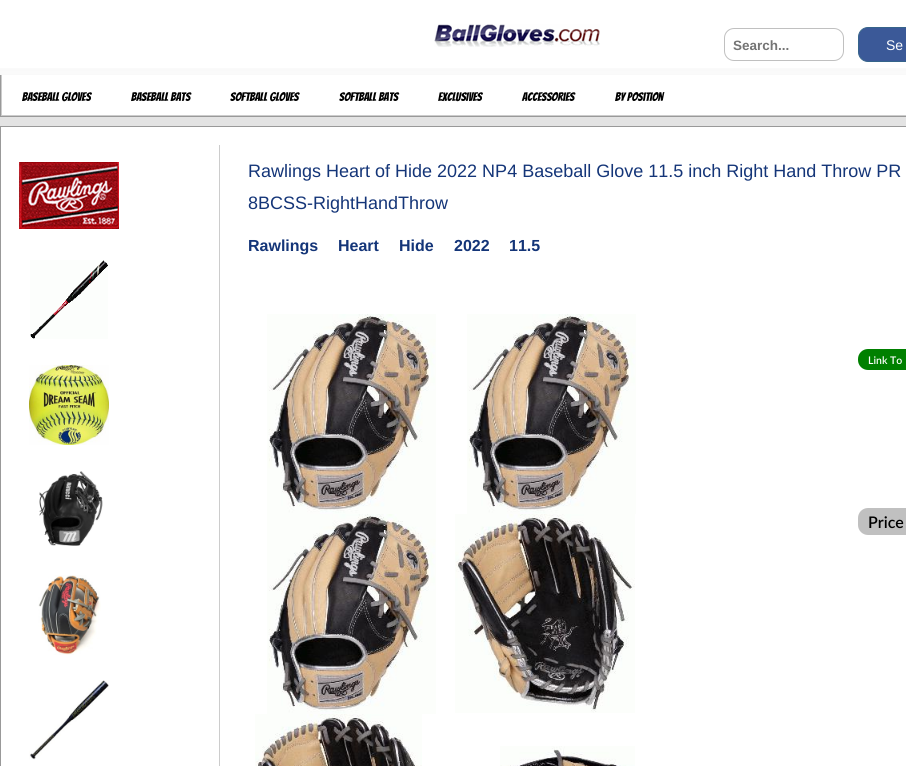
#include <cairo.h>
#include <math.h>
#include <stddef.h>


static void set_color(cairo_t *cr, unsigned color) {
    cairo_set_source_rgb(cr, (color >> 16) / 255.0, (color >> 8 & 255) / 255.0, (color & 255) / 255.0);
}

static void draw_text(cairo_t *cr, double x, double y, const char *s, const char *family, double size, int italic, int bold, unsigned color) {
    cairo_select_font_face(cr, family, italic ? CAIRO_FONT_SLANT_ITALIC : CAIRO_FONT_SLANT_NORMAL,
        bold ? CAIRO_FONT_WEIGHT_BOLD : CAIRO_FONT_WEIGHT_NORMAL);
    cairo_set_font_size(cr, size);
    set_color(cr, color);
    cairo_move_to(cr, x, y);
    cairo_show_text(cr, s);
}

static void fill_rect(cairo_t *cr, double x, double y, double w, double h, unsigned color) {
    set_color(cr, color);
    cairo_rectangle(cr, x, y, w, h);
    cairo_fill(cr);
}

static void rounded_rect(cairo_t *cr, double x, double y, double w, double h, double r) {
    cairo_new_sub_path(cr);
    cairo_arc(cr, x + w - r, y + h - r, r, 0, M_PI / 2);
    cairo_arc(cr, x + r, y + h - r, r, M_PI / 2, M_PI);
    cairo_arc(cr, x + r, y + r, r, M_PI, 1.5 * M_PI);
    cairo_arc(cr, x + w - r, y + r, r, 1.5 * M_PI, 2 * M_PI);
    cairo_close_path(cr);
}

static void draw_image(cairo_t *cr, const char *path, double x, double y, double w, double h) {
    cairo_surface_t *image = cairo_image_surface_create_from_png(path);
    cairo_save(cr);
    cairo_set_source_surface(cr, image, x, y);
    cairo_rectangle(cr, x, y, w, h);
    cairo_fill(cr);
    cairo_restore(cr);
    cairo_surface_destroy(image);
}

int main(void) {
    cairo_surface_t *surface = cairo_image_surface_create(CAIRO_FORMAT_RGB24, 906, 766);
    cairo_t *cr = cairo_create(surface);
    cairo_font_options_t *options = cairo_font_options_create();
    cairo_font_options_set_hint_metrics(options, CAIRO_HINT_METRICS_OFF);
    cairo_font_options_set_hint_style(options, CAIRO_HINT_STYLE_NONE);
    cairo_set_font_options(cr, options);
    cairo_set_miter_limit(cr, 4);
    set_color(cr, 0xFFFFFF);
    cairo_paint(cr);
    draw_image(cr, "assets/img1.png", 0, 68, 906, 7);
    fill_rect(cr, 0, 117, 906, 9, 0xE3E3E3);
    draw_image(cr, "assets/img2.png", 434, 24, 166, 23);
    rounded_rect(cr, 724.5, 28.5, 119, 32, 9.5);
    set_color(cr, 0xC0C0C0);
    cairo_set_line_width(cr, 1);
    cairo_stroke(cr);
    draw_text(cr, 733, 50, "Search...", "Liberation Sans", 13.5, 0, 1, 0x757575);
    set_color(cr, 0x3B5998);
    rounded_rect(cr, 858.5, 27.5, 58, 34, 9.5);
    cairo_fill_preserve(cr);
    set_color(cr, 0x36648B);
    cairo_stroke(cr);
    draw_text(cr, 886, 50, "Se", "Liberation Sans", 14, 0, 0, 0xFFFFFF);
    fill_rect(cr, 0, 116, 906, 1, 0x999999);
    fill_rect(cr, 0, 75, 1, 42, 0x999999);
    fill_rect(cr, 1, 115, 905, 1, 0xCCCCCC);
    fill_rect(cr, 1, 75, 1, 41, 0xCCCCCC);
    draw_text(cr, 22, 101, "Baseball Gloves", "Bangers", 12, 0, 0, 0x000000);
    draw_text(cr, 131, 101, "Baseball Bats", "Bangers", 12, 0, 0, 0x000000);
    draw_text(cr, 230, 101, "Softball Gloves", "Bangers", 12, 0, 0, 0x000000);
    draw_text(cr, 339, 101, "Softball Bats", "Bangers", 12, 0, 0, 0x000000);
    draw_text(cr, 438, 101, "Exclusives", "Bangers", 12, 0, 0, 0x000000);
    draw_text(cr, 522, 101, "Accessories", "Bangers", 12, 0, 0, 0x000000);
    draw_text(cr, 615, 101, "By Position", "Bangers", 12, 0, 0, 0x000000);
    cairo_rectangle(cr, 0.5, 126.5, 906, 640);
    set_color(cr, 0x999999);
    cairo_stroke(cr);
    draw_image(cr, "assets/img3.png", 19, 162, 100, 67);
    draw_image(cr, "assets/img4.png", 30, 260, 78, 79);
    draw_image(cr, "assets/img5.png", 29, 365, 80, 80);
    draw_image(cr, "assets/img6.png", 39, 471, 64, 75);
    draw_image(cr, "assets/img7.png", 38, 575, 63, 80);
    draw_image(cr, "assets/img8.png", 29, 680, 80, 80);
    fill_rect(cr, 219, 145, 1, 621, 0xCCCCCC);
    draw_text(cr, 248, 177, "Rawlings Heart of Hide 2022 NP4 Baseball Glove 11.5 inch Right Hand Throw PR", "Liberation Sans", 18, 0, 0, 0x143578);
    draw_text(cr, 248, 209, "8BCSS-RightHandThrow", "Liberation Sans", 18, 0, 0, 0x143578);
    draw_text(cr, 248, 251, "Rawlings", "Liberation Sans", 16, 0, 1, 0x143578);
    draw_text(cr, 338, 251, "Heart", "Liberation Sans", 16, 0, 1, 0x143578);
    draw_text(cr, 399, 251, "Hide", "Liberation Sans", 16, 0, 1, 0x143578);
    draw_text(cr, 454, 251, "2022", "Liberation Sans", 16, 0, 1, 0x143578);
    draw_text(cr, 509, 251, "11.5", "Liberation Sans", 16, 0, 1, 0x143578);
    draw_image(cr, "assets/img9.png", 267, 314, 169, 200);
    draw_image(cr, "assets/img9.png", 467, 314, 169, 200);
    draw_image(cr, "assets/img9.png", 267, 514, 169, 200);
    draw_image(cr, "assets/img10.png", 455, 514, 180, 199);
    draw_image(cr, "assets/img11.png", 255, 714, 167, 52);
    draw_image(cr, "assets/img12.png", 500, 746, 135, 20);
    set_color(cr, 0x008000);
    rounded_rect(cr, 858, 349, 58, 21, 10);
    cairo_fill(cr);
    draw_text(cr, 868, 364, "Link To", "Lato SemiBold", 10.5, 0, 0, 0xFFFFFF);
    set_color(cr, 0xC0C0C0);
    rounded_rect(cr, 858, 508, 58, 27, 10);
    cairo_fill(cr);
    draw_text(cr, 868, 528, "Price", "Lato SemiBold", 16, 0, 0, 0x000000);
    cairo_surface_write_to_png(surface, "output.png");
    cairo_font_options_destroy(options);
    cairo_destroy(cr);
    cairo_surface_destroy(surface);
    return 0;
}
